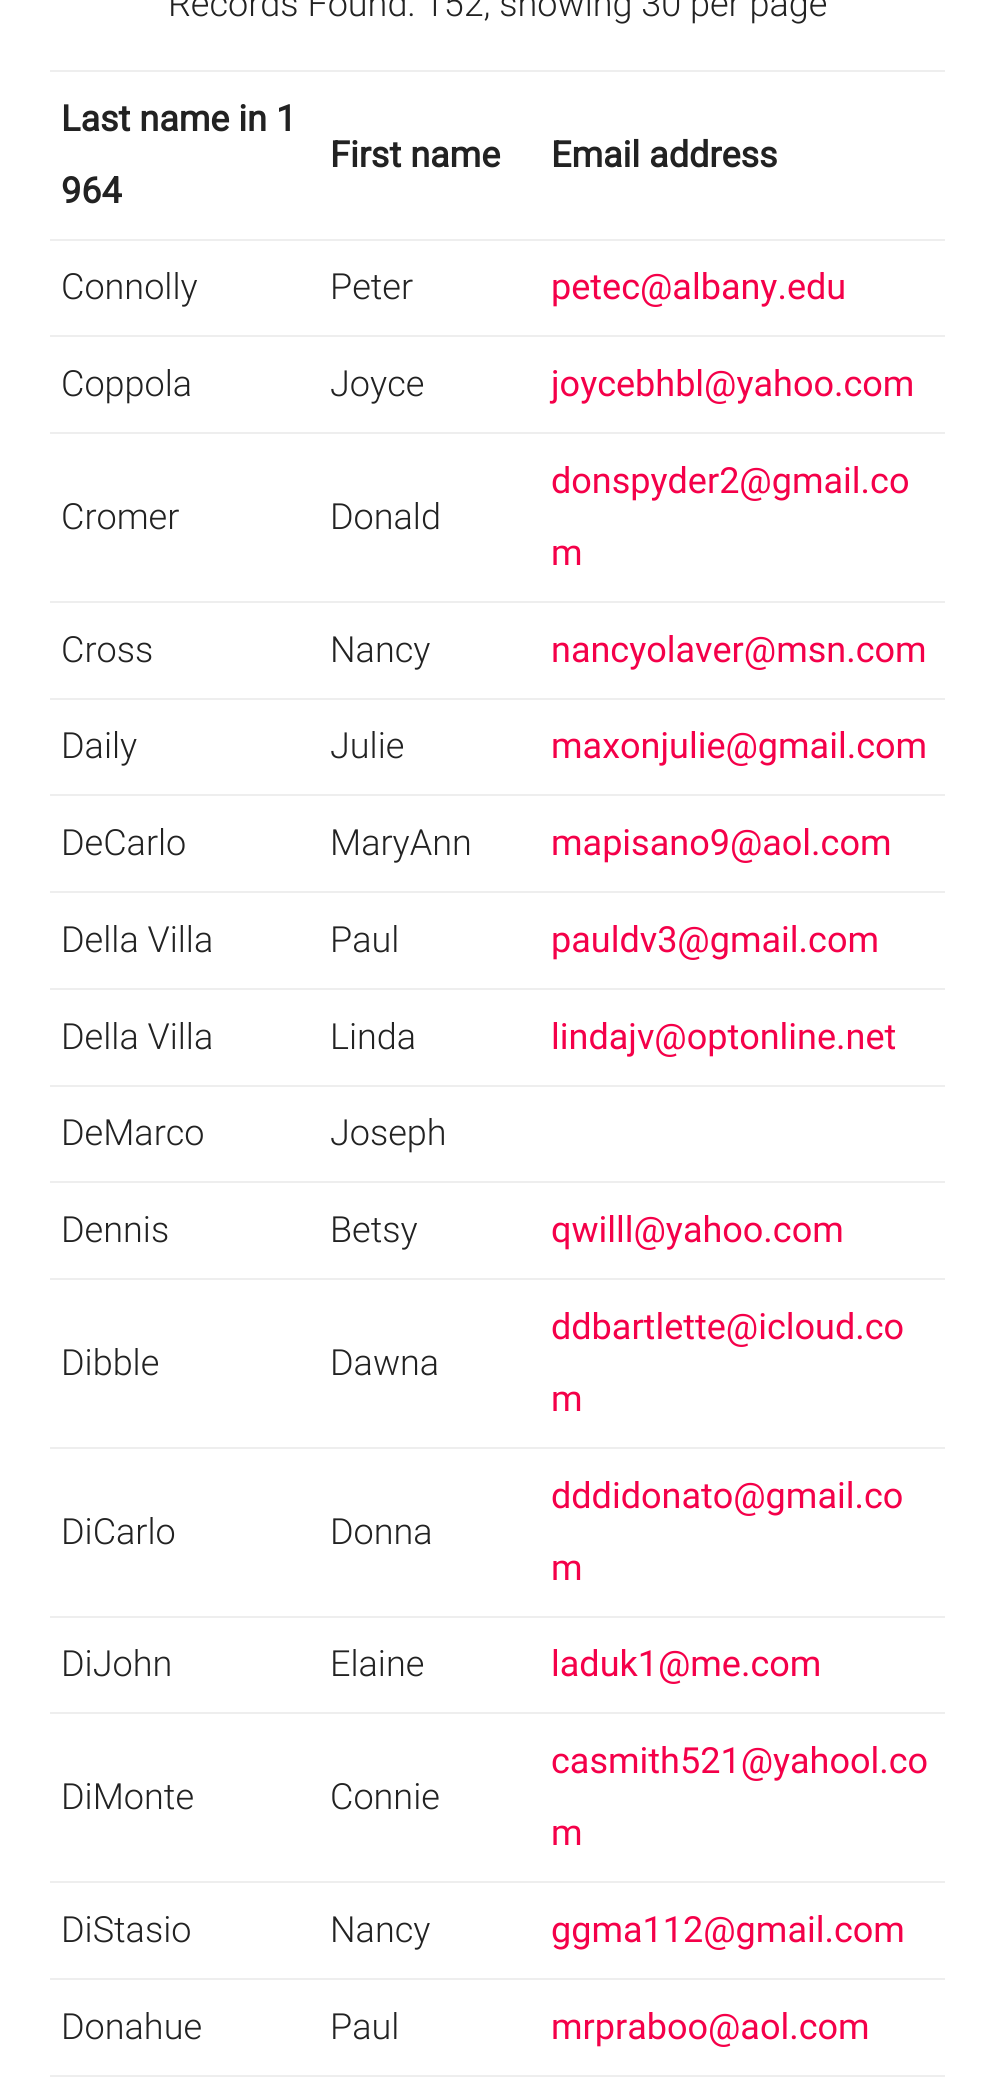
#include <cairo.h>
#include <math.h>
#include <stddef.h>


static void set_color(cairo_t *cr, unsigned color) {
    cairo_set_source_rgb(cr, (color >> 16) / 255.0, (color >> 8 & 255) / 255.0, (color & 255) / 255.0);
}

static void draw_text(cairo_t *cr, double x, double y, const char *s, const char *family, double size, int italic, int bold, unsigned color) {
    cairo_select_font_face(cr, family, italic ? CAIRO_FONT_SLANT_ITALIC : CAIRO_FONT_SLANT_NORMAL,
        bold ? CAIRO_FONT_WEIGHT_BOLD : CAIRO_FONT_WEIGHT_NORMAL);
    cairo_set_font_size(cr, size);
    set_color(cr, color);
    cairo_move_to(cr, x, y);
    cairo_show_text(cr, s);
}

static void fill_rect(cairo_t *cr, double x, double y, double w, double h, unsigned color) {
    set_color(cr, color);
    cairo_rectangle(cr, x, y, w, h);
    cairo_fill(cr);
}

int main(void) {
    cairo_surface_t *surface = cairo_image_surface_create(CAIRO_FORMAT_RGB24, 993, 2079);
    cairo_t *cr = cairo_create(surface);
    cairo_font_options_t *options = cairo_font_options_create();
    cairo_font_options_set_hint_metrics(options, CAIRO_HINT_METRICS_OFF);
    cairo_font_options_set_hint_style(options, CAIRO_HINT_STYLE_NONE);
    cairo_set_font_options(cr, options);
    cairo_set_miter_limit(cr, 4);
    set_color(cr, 0xFFFFFF);
    cairo_paint(cr);
    draw_text(cr, 168, 16, "Records Found: 152, showing 30 per page", "Roboto Light", 36, 0, 0, 0x222222);
    fill_rect(cr, 50, 70, 895, 2, 0xEEEEEE);
    draw_text(cr, 61, 131, "Last name in 1", "Roboto", 36, 0, 1, 0x222222);
    draw_text(cr, 61, 203, "964", "Roboto", 36, 0, 1, 0x222222);
    draw_text(cr, 330, 167, "First name", "Roboto", 36, 0, 1, 0x222222);
    draw_text(cr, 551, 167, "Email address", "Roboto", 36, 0, 1, 0x222222);
    fill_rect(cr, 50, 239, 895, 2, 0xEEEEEE);
    draw_text(cr, 61, 299, "Connolly", "Roboto Light", 36, 0, 0, 0x222222);
    draw_text(cr, 330, 299, "Peter", "Roboto Light", 36, 0, 0, 0x222222);
    draw_text(cr, 551, 299, "petec@albany.edu", "Roboto", 36, 0, 0, 0xF40049);
    fill_rect(cr, 50, 335, 895, 2, 0xEEEEEE);
    draw_text(cr, 61, 396, "Coppola", "Roboto Light", 36, 0, 0, 0x222222);
    draw_text(cr, 330, 396, "Joyce", "Roboto Light", 36, 0, 0, 0x222222);
    draw_text(cr, 551, 396, "joycebhbl@yahoo.com", "Roboto", 36, 0, 0, 0xF40049);
    fill_rect(cr, 50, 432, 895, 2, 0xEEEEEE);
    draw_text(cr, 61, 529, "Cromer", "Roboto Light", 36, 0, 0, 0x222222);
    draw_text(cr, 330, 529, "Donald", "Roboto Light", 36, 0, 0, 0x222222);
    draw_text(cr, 551, 493, "donspyder2@gmail.co", "Roboto", 36, 0, 0, 0xF40049);
    draw_text(cr, 551, 565, "m", "Roboto", 36, 0, 0, 0xF40049);
    fill_rect(cr, 50, 601, 895, 2, 0xEEEEEE);
    draw_text(cr, 61, 662, "Cross", "Roboto Light", 36, 0, 0, 0x222222);
    draw_text(cr, 330, 662, "Nancy", "Roboto Light", 36, 0, 0, 0x222222);
    draw_text(cr, 551, 662, "nancyolaver@msn.com", "Roboto", 36, 0, 0, 0xF40049);
    fill_rect(cr, 50, 698, 895, 2, 0xEEEEEE);
    draw_text(cr, 61, 758, "Daily", "Roboto Light", 36, 0, 0, 0x222222);
    draw_text(cr, 330, 758, "Julie", "Roboto Light", 36, 0, 0, 0x222222);
    draw_text(cr, 551, 758, "maxonjulie@gmail.com", "Roboto", 36, 0, 0, 0xF40049);
    fill_rect(cr, 50, 794, 895, 2, 0xEEEEEE);
    draw_text(cr, 61, 855, "DeCarlo", "Roboto Light", 36, 0, 0, 0x222222);
    draw_text(cr, 330, 855, "MaryAnn", "Roboto Light", 36, 0, 0, 0x222222);
    draw_text(cr, 551, 855, "mapisano9@aol.com", "Roboto", 36, 0, 0, 0xF40049);
    fill_rect(cr, 50, 891, 895, 2, 0xEEEEEE);
    draw_text(cr, 61, 952, "Della Villa", "Roboto Light", 36, 0, 0, 0x222222);
    draw_text(cr, 330, 952, "Paul", "Roboto Light", 36, 0, 0, 0x222222);
    draw_text(cr, 551, 952, "pauldv3@gmail.com", "Roboto", 36, 0, 0, 0xF40049);
    fill_rect(cr, 50, 988, 895, 2, 0xEEEEEE);
    draw_text(cr, 61, 1049, "Della Villa", "Roboto Light", 36, 0, 0, 0x222222);
    draw_text(cr, 330, 1049, "Linda", "Roboto Light", 36, 0, 0, 0x222222);
    draw_text(cr, 551, 1049, "lindajv@optonline.net", "Roboto", 36, 0, 0, 0xF40049);
    fill_rect(cr, 50, 1085, 895, 2, 0xEEEEEE);
    draw_text(cr, 61, 1145, "DeMarco", "Roboto Light", 36, 0, 0, 0x222222);
    draw_text(cr, 330, 1145, "Joseph", "Roboto Light", 36, 0, 0, 0x222222);
    fill_rect(cr, 50, 1181, 895, 2, 0xEEEEEE);
    draw_text(cr, 61, 1242, "Dennis", "Roboto Light", 36, 0, 0, 0x222222);
    draw_text(cr, 330, 1242, "Betsy", "Roboto Light", 36, 0, 0, 0x222222);
    draw_text(cr, 551, 1242, "qwilll@yahoo.com", "Roboto", 36, 0, 0, 0xF40049);
    fill_rect(cr, 50, 1278, 895, 2, 0xEEEEEE);
    draw_text(cr, 61, 1375, "Dibble", "Roboto Light", 36, 0, 0, 0x222222);
    draw_text(cr, 330, 1375, "Dawna", "Roboto Light", 36, 0, 0, 0x222222);
    draw_text(cr, 551, 1339, "ddbartlette@icloud.co", "Roboto", 36, 0, 0, 0xF40049);
    draw_text(cr, 551, 1411, "m", "Roboto", 36, 0, 0, 0xF40049);
    fill_rect(cr, 50, 1447, 895, 2, 0xEEEEEE);
    draw_text(cr, 61, 1544, "DiCarlo", "Roboto Light", 36, 0, 0, 0x222222);
    draw_text(cr, 330, 1544, "Donna", "Roboto Light", 36, 0, 0, 0x222222);
    draw_text(cr, 551, 1508, "dddidonato@gmail.co", "Roboto", 36, 0, 0, 0xF40049);
    draw_text(cr, 551, 1580, "m", "Roboto", 36, 0, 0, 0xF40049);
    fill_rect(cr, 50, 1616, 895, 2, 0xEEEEEE);
    draw_text(cr, 61, 1676, "DiJohn", "Roboto Light", 36, 0, 0, 0x222222);
    draw_text(cr, 330, 1676, "Elaine", "Roboto Light", 36, 0, 0, 0x222222);
    draw_text(cr, 551, 1676, "laduk1@me.com", "Roboto", 36, 0, 0, 0xF40049);
    fill_rect(cr, 50, 1712, 895, 2, 0xEEEEEE);
    draw_text(cr, 61, 1809, "DiMonte", "Roboto Light", 36, 0, 0, 0x222222);
    draw_text(cr, 330, 1809, "Connie", "Roboto Light", 36, 0, 0, 0x222222);
    draw_text(cr, 551, 1773, "casmith521@yahool.co", "Roboto", 36, 0, 0, 0xF40049);
    draw_text(cr, 551, 1845, "m", "Roboto", 36, 0, 0, 0xF40049);
    fill_rect(cr, 50, 1881, 895, 2, 0xEEEEEE);
    draw_text(cr, 61, 1942, "DiStasio", "Roboto Light", 36, 0, 0, 0x222222);
    draw_text(cr, 330, 1942, "Nancy", "Roboto Light", 36, 0, 0, 0x222222);
    draw_text(cr, 551, 1942, "ggma112@gmail.com", "Roboto", 36, 0, 0, 0xF40049);
    fill_rect(cr, 50, 1978, 895, 2, 0xEEEEEE);
    draw_text(cr, 61, 2039, "Donahue", "Roboto Light", 36, 0, 0, 0x222222);
    draw_text(cr, 330, 2039, "Paul", "Roboto Light", 36, 0, 0, 0x222222);
    draw_text(cr, 551, 2039, "mrpraboo@aol.com", "Roboto", 36, 0, 0, 0xF40049);
    fill_rect(cr, 50, 2075, 895, 2, 0xEEEEEE);
    cairo_surface_write_to_png(surface, "output.png");
    cairo_font_options_destroy(options);
    cairo_destroy(cr);
    cairo_surface_destroy(surface);
    return 0;
}
